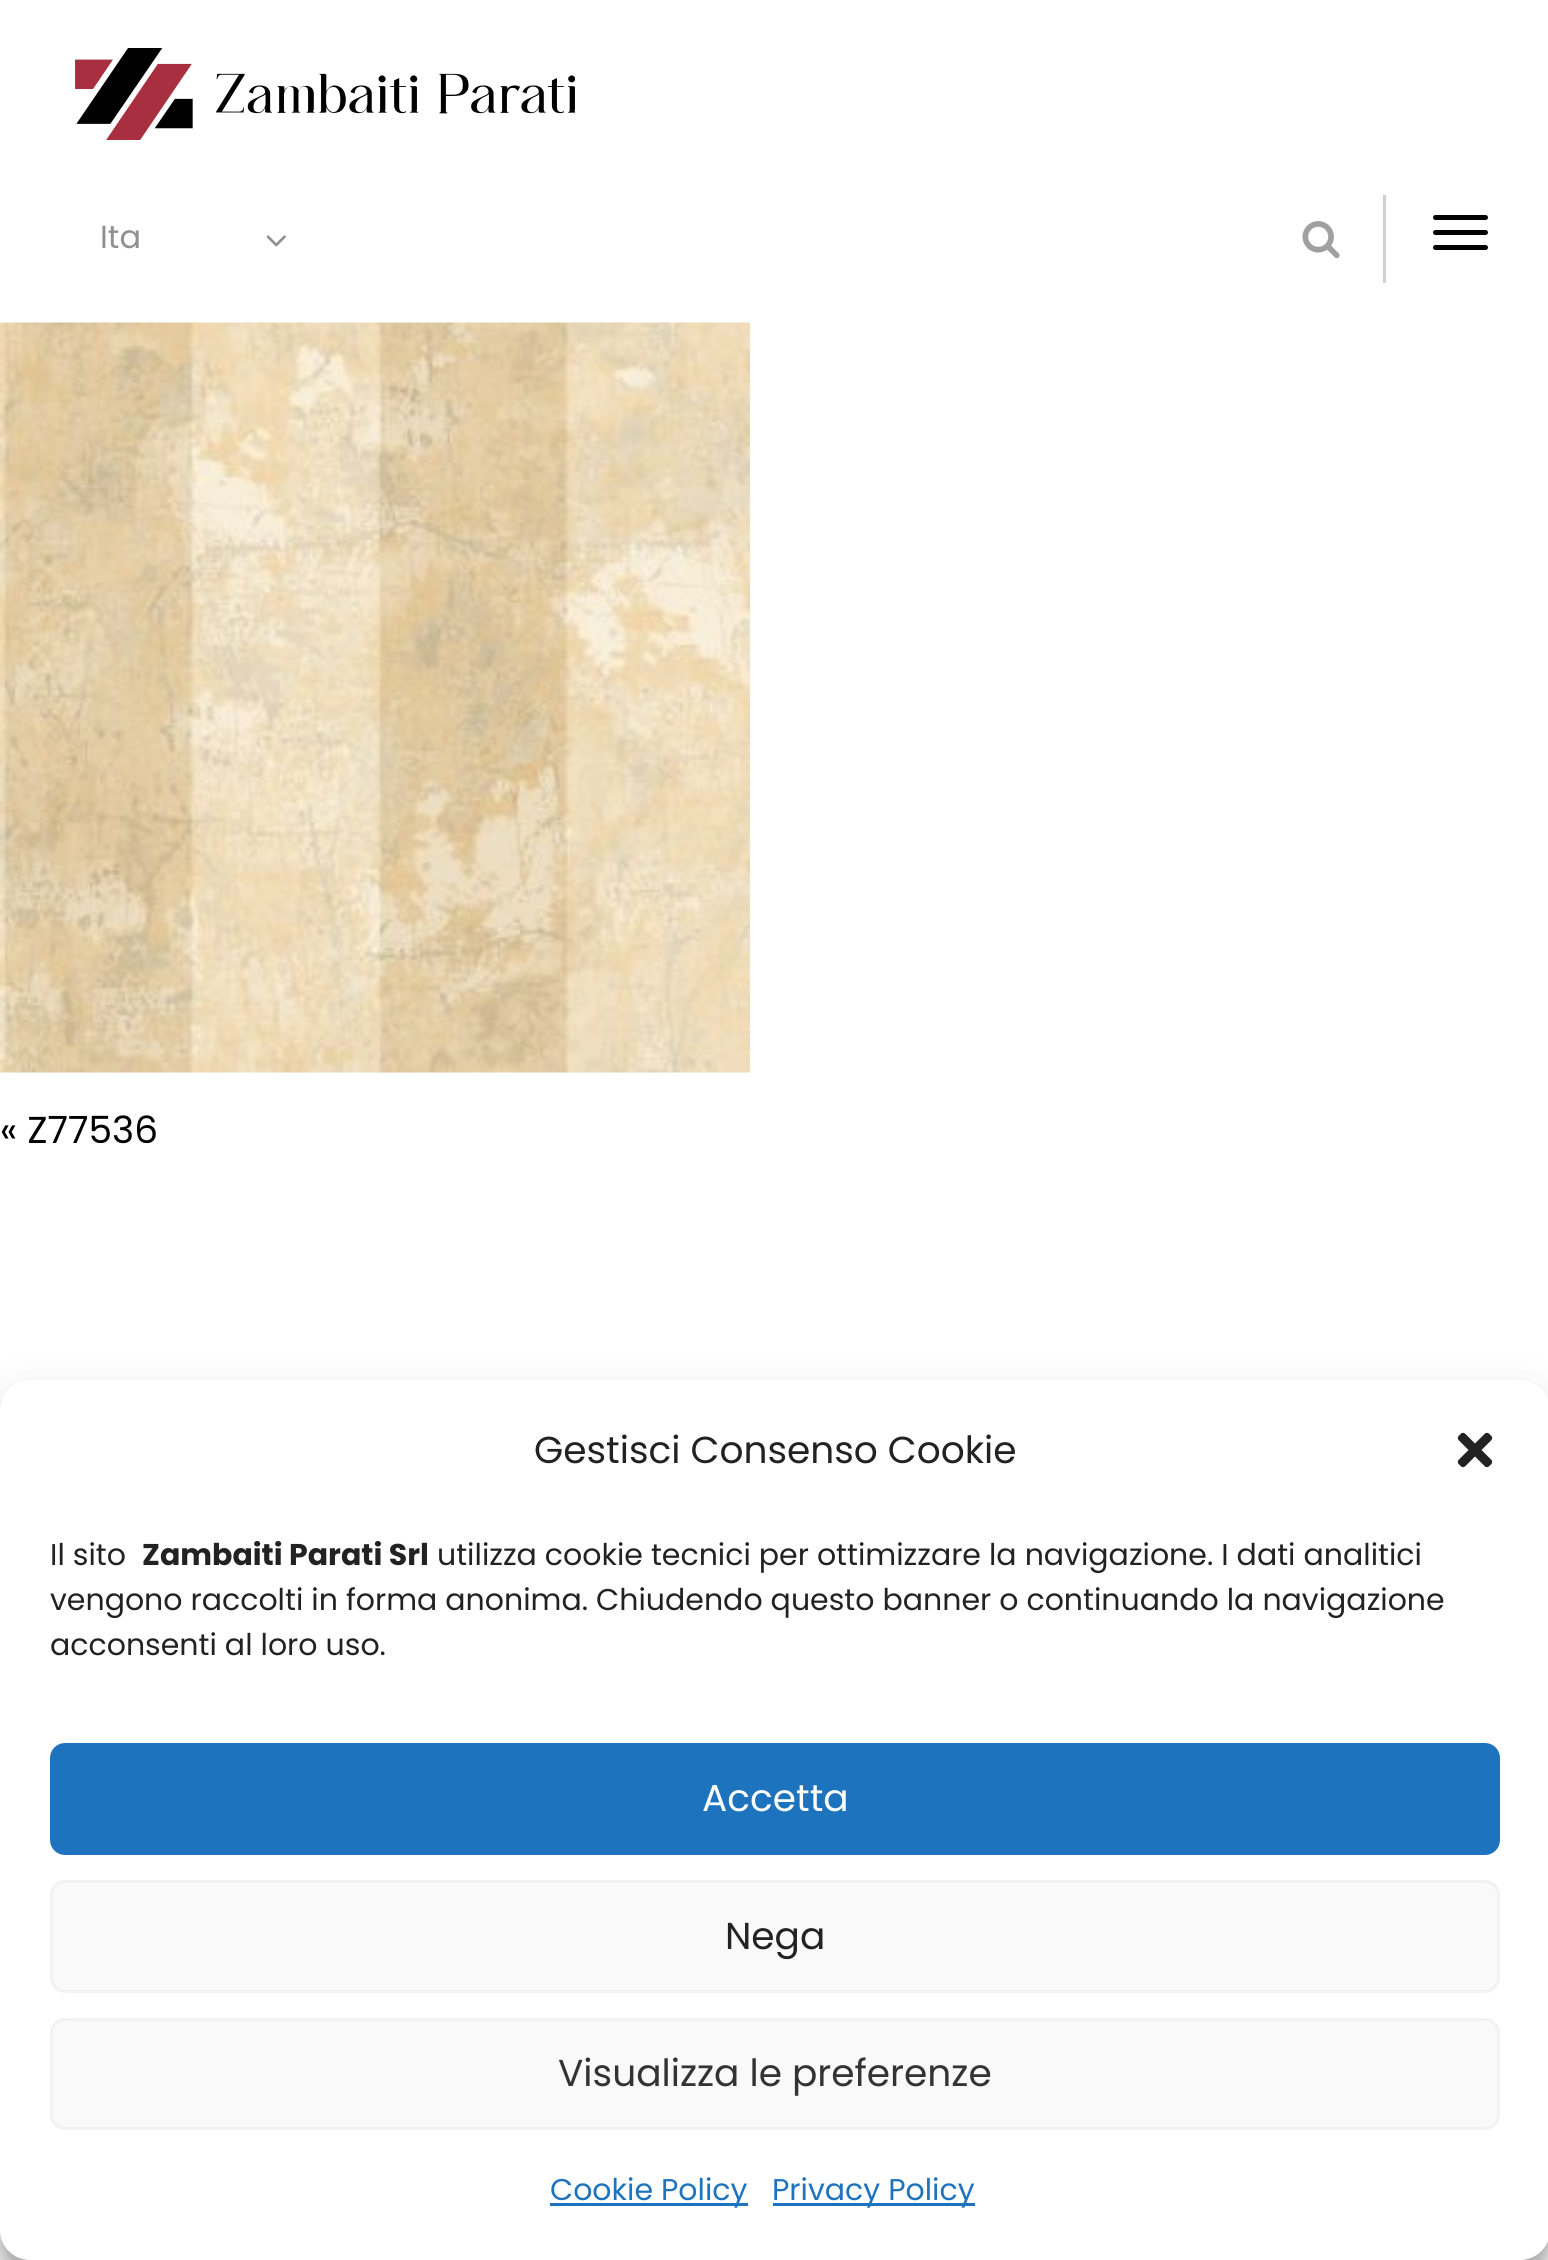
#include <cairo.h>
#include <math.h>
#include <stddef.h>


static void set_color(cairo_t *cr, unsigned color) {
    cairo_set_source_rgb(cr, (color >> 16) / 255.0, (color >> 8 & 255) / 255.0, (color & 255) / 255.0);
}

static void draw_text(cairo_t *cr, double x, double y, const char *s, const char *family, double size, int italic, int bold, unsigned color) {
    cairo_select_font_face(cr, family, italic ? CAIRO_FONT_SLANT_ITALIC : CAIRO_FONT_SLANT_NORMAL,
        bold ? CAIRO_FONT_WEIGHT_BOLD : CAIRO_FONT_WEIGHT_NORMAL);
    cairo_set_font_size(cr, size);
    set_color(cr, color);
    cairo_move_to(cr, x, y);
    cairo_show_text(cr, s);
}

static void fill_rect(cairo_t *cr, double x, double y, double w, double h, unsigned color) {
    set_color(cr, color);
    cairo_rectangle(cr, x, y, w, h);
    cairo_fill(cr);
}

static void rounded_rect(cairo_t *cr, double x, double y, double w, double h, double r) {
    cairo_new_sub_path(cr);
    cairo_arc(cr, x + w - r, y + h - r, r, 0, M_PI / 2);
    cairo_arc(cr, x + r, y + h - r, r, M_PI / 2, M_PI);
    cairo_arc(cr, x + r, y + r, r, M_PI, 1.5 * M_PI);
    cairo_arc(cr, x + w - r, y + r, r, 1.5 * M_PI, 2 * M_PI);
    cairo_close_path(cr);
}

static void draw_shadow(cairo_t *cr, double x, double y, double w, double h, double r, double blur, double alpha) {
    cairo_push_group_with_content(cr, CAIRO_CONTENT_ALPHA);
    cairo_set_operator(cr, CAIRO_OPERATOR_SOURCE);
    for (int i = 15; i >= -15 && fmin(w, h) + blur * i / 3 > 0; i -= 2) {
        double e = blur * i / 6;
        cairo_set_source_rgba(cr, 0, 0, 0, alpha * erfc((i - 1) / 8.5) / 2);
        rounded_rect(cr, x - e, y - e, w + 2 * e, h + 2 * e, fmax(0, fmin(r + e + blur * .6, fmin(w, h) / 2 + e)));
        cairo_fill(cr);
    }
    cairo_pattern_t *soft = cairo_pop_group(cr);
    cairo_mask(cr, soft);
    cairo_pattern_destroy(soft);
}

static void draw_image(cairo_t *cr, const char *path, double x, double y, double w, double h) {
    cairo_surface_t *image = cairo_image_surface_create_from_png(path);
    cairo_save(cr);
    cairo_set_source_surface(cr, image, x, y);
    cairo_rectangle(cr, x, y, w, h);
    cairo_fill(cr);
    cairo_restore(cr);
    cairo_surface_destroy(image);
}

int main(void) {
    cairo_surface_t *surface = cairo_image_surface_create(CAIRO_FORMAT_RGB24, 1548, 2260);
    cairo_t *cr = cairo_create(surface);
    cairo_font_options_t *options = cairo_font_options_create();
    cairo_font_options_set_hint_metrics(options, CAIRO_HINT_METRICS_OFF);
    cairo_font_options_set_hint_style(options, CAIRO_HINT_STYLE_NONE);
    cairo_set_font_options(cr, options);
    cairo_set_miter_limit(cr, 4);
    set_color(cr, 0xFFFFFF);
    cairo_paint(cr);
    draw_image(cr, "assets/img1.png", 75, 48, 500, 92);
    draw_text(cr, 100, 248, "Ita", "Poppins", 32, 0, 0, 0x909090);
    draw_image(cr, "assets/img2.png", 266, 235, 20, 12);
    fill_rect(cr, 1383, 195, 3, 88, 0xD0D0D0);
    draw_image(cr, "assets/img3.png", 1302, 221, 38, 38);
    set_color(cr, 0x000000);
    rounded_rect(cr, 1433, 215, 55, 5, 2.5);
    cairo_fill(cr);
    rounded_rect(cr, 1433, 230, 55, 5, 2.5);
    cairo_fill(cr);
    rounded_rect(cr, 1433, 245, 55, 5, 2.5);
    cairo_fill(cr);
    draw_image(cr, "assets/img4.png", 0, 322, 750, 751);
    draw_text(cr, 0, 1143, "« Z77536", "Poppins", 37.5, 0, 0, 0x000000);
    set_color(cr, 0x000000);
    draw_shadow(cr, 0, 1395, 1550, 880, 30, 7.5, 0.23);
    draw_shadow(cr, 0, 1405, 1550, 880, 30, 25, 0.19);
    set_color(cr, 0xFFFFFF);
    rounded_rect(cr, 0, 1380, 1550, 880, 30);
    cairo_fill(cr);
    draw_text(cr, 534, 1463, "Gestisci Consenso Cookie", "Poppins", 37.5, 0, 0, 0x222222);
    draw_image(cr, "assets/img5.png", 1457, 1432, 36, 36);
    draw_text(cr, 50, 1565, "Il sito", "Poppins", 30, 0, 0, 0x222222);
    draw_text(cr, 142, 1565, "Zambaiti Parati Srl", "Poppins", 30, 0, 1, 0x222222);
    draw_text(cr, 437, 1565, "utilizza cookie tecnici per ottimizzare la navigazione. I dati analitici", "Poppins", 30, 0, 0, 0x222222);
    draw_text(cr, 50, 1610, "vengono raccolti in forma anonima. Chiudendo questo banner o continuando la navigazione", "Poppins", 30, 0, 0, 0x222222);
    draw_text(cr, 50, 1655, "acconsenti al loro uso.", "Poppins", 30, 0, 0, 0x222222);
    set_color(cr, 0x1E73BE);
    rounded_rect(cr, 51.5, 1744.5, 1447, 109, 13.5);
    cairo_fill_preserve(cr);
    cairo_set_line_width(cr, 3);
    cairo_stroke(cr);
    draw_text(cr, 702, 1811, "Accetta", "Poppins", 37.5, 0, 0, 0xFFFFFF);
    set_color(cr, 0xF9F9F9);
    rounded_rect(cr, 51.5, 1881.5, 1447, 110, 13.5);
    cairo_fill_preserve(cr);
    set_color(cr, 0xF2F2F2);
    cairo_stroke(cr);
    draw_text(cr, 725, 1949, "Nega", "Poppins", 37.5, 0, 0, 0x222222);
    set_color(cr, 0xF9F9F9);
    rounded_rect(cr, 51.5, 2019.5, 1447, 109, 13.5);
    cairo_fill_preserve(cr);
    set_color(cr, 0xF2F2F2);
    cairo_stroke(cr);
    draw_text(cr, 558, 2086, "Visualizza le preferenze", "Poppins", 37.5, 0, 0, 0x333333);
    fill_rect(cr, 550, 2203, 198, 3, 0x1E73BE);
    draw_text(cr, 550, 2200, "Cookie Policy", "Poppins", 30, 0, 0, 0x1E73BE);
    fill_rect(cr, 773, 2203, 202, 3, 0x1E73BE);
    draw_text(cr, 772, 2200, "Privacy Policy", "Poppins", 30, 0, 0, 0x1E73BE);
    cairo_surface_write_to_png(surface, "output.png");
    cairo_font_options_destroy(options);
    cairo_destroy(cr);
    cairo_surface_destroy(surface);
    return 0;
}
